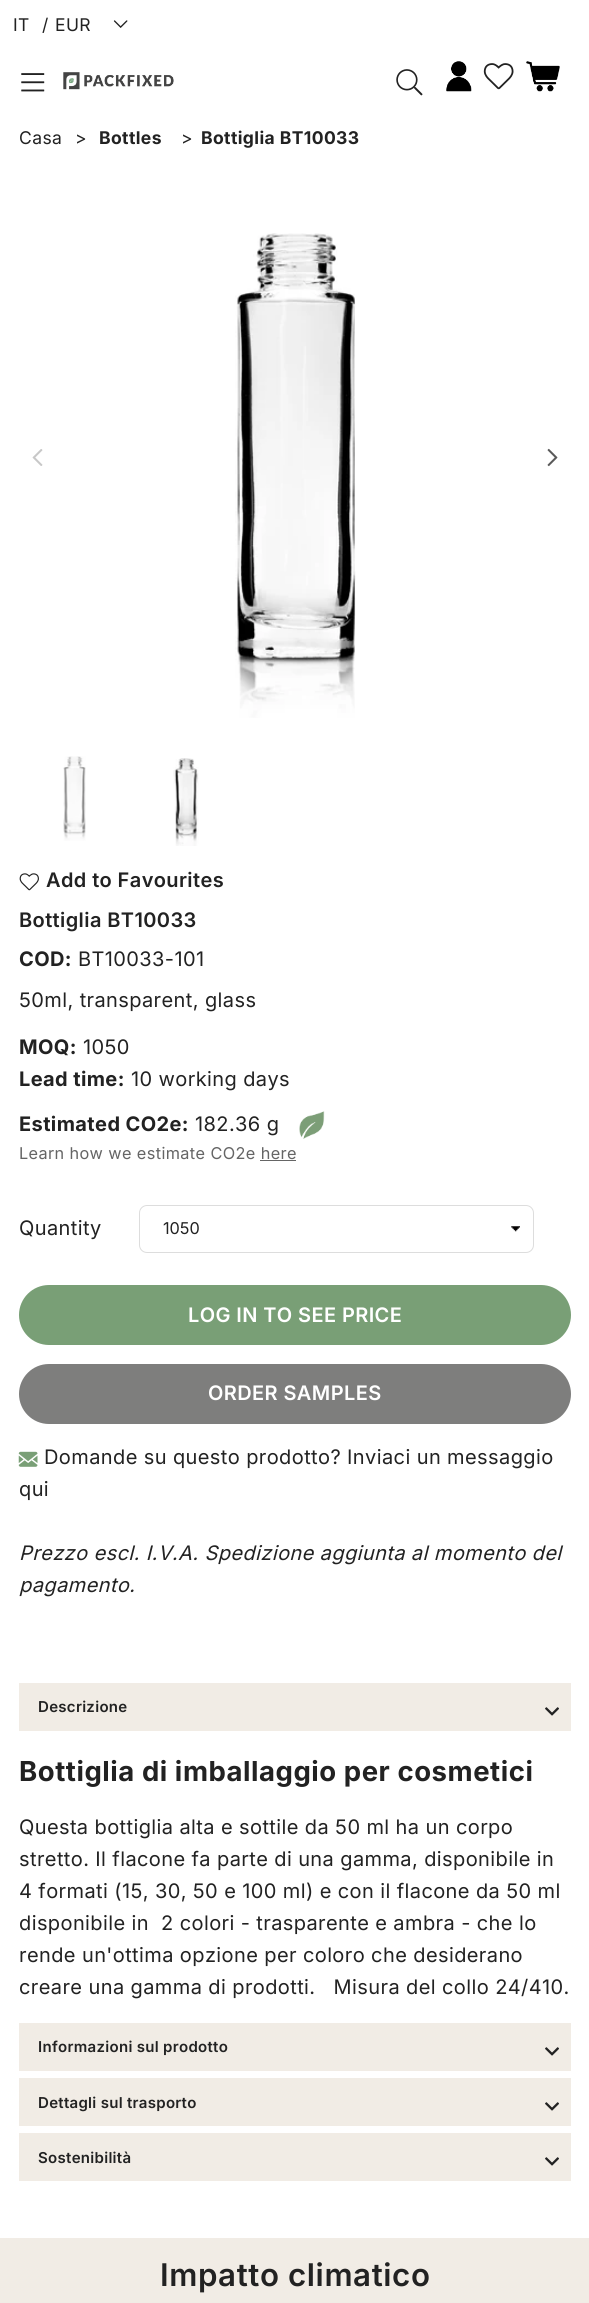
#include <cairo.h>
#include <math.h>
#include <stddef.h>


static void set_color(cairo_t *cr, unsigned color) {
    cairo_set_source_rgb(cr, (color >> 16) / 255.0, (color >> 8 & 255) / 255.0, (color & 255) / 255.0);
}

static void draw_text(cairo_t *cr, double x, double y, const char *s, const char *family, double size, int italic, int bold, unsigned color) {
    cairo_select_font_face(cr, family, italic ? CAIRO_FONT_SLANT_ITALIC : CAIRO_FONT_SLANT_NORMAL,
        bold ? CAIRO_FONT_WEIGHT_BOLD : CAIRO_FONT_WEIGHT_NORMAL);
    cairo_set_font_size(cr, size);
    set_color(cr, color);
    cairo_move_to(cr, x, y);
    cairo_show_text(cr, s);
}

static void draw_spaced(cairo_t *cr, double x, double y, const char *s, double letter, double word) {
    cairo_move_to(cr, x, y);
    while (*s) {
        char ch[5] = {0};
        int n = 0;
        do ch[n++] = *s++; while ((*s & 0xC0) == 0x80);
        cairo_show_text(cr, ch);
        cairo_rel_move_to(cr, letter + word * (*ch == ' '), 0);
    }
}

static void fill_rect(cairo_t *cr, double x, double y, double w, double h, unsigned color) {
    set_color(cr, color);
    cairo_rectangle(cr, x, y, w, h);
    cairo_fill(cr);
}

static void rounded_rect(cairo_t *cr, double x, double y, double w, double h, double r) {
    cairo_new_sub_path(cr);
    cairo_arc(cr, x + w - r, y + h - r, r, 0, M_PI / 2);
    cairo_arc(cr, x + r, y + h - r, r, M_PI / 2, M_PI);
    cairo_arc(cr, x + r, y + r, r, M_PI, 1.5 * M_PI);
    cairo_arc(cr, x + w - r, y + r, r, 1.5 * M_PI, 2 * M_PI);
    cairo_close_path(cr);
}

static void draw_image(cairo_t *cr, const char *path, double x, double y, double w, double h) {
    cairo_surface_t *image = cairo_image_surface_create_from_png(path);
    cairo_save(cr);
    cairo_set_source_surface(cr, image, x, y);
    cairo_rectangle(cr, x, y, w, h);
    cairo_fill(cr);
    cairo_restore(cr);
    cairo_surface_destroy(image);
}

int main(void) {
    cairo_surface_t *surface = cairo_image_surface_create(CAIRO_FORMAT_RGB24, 589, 2303);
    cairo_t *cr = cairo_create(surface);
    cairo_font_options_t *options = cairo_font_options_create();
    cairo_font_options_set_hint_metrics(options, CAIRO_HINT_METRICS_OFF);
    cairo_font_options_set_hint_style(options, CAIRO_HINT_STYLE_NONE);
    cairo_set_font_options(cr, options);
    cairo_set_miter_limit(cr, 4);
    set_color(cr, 0xFFFFFF);
    cairo_paint(cr);
    cairo_select_font_face(cr, "Inter", CAIRO_FONT_SLANT_NORMAL, CAIRO_FONT_WEIGHT_NORMAL);
    cairo_set_font_size(cr, 17.5);
    set_color(cr, 0x222222);
    draw_spaced(cr, 13, 31, "IT", 0.4, 0);
    draw_spaced(cr, 42, 31, "/", 0.4, 0);
    draw_spaced(cr, 55, 31, "EUR", 0.4, 0);
    draw_image(cr, "assets/img1.png", 113, 20, 15, 8);
    draw_image(cr, "assets/img2.png", 21, 73, 24, 19);
    draw_image(cr, "assets/img3.png", 63, 72, 111, 18);
    draw_image(cr, "assets/img4.png", 396, 69, 27, 27);
    draw_image(cr, "assets/img5.png", 446, 61, 26, 31);
    draw_image(cr, "assets/img6.png", 483, 63, 31, 27);
    draw_image(cr, "assets/img7.png", 526, 61, 34, 31);
    draw_spaced(cr, 19, 144, "Casa", 0.4, 0);
    draw_spaced(cr, 75, 144, ">", 0.4, 0);
    cairo_select_font_face(cr, "Inter", CAIRO_FONT_SLANT_NORMAL, CAIRO_FONT_WEIGHT_BOLD);
    draw_spaced(cr, 99, 144, "Bottles", 0.4, 0);
    cairo_select_font_face(cr, "Inter", CAIRO_FONT_SLANT_NORMAL, CAIRO_FONT_WEIGHT_NORMAL);
    draw_spaced(cr, 181, 144, ">", 0.4, 0);
    cairo_select_font_face(cr, "Inter", CAIRO_FONT_SLANT_NORMAL, CAIRO_FONT_WEIGHT_BOLD);
    draw_spaced(cr, 201, 144, "Bottiglia BT10033", 0.4, 0);
    draw_image(cr, "assets/img8.png", 32, 449, 11, 17);
    draw_image(cr, "assets/img9.png", 235, 233, 121, 485);
    draw_image(cr, "assets/img10.png", 547, 448, 11, 19);
    draw_image(cr, "assets/img11.png", 63, 756, 23, 85);
    draw_image(cr, "assets/img12.png", 173, 758, 26, 88);
    draw_image(cr, "assets/img13.png", 19, 873, 20, 18);
    cairo_select_font_face(cr, "Inter SemiBold", CAIRO_FONT_SLANT_NORMAL, CAIRO_FONT_WEIGHT_NORMAL);
    cairo_set_font_size(cr, 20);
    draw_spaced(cr, 46, 887, "Add to Favourites", 0.4, 0);
    draw_spaced(cr, 19, 927, "Bottiglia BT10033", 0.4, 0);
    cairo_select_font_face(cr, "Inter", CAIRO_FONT_SLANT_NORMAL, CAIRO_FONT_WEIGHT_BOLD);
    draw_spaced(cr, 19, 966, "COD:", 0.4, 0);
    cairo_select_font_face(cr, "Inter", CAIRO_FONT_SLANT_NORMAL, CAIRO_FONT_WEIGHT_NORMAL);
    draw_spaced(cr, 78, 966, "BT10033-101", 0.4, 0);
    draw_spaced(cr, 19, 1007, "50ml, transparent, glass", 0.4, 0);
    cairo_select_font_face(cr, "Inter", CAIRO_FONT_SLANT_NORMAL, CAIRO_FONT_WEIGHT_BOLD);
    draw_spaced(cr, 19, 1054, "MOQ:", 0.4, 0);
    cairo_select_font_face(cr, "Inter", CAIRO_FONT_SLANT_NORMAL, CAIRO_FONT_WEIGHT_NORMAL);
    draw_spaced(cr, 83, 1054, "1050", 0.4, 0);
    cairo_select_font_face(cr, "Inter", CAIRO_FONT_SLANT_NORMAL, CAIRO_FONT_WEIGHT_BOLD);
    draw_spaced(cr, 19, 1086, "Lead time:", 0.4, 0);
    cairo_select_font_face(cr, "Inter", CAIRO_FONT_SLANT_NORMAL, CAIRO_FONT_WEIGHT_NORMAL);
    draw_spaced(cr, 131, 1086, "10 working days", 0.4, 0);
    cairo_select_font_face(cr, "Inter", CAIRO_FONT_SLANT_NORMAL, CAIRO_FONT_WEIGHT_BOLD);
    draw_spaced(cr, 19, 1131, "Estimated CO2e:", 0.4, 0);
    cairo_select_font_face(cr, "Inter", CAIRO_FONT_SLANT_NORMAL, CAIRO_FONT_WEIGHT_NORMAL);
    draw_spaced(cr, 195, 1131, "182.36 g", 0.4, 0);
    draw_image(cr, "assets/img14.png", 299, 1111, 26, 28);
    cairo_set_font_size(cr, 16.25);
    set_color(cr, 0x656565);
    draw_spaced(cr, 19, 1159, "Learn how we estimate CO2e here", 0.4, 0);
    fill_rect(cr, 260, 1160, 36, 1, 0x656565);
    cairo_set_font_size(cr, 20);
    set_color(cr, 0x222222);
    draw_spaced(cr, 19, 1235, "Quantity", 0.4, 0);
    draw_image(cr, "assets/img15.png", 511, 1226, 9, 6);
    rounded_rect(cr, 139.5, 1205.5, 394, 47, 7.5);
    set_color(cr, 0xDDDDDD);
    cairo_set_line_width(cr, 1);
    cairo_stroke(cr);
    draw_text(cr, 163, 1234, "1050", "Inter", 16.25, 0, 0, 0x222222);
    set_color(cr, 0x799F76);
    rounded_rect(cr, 19, 1285, 552, 60, 30);
    cairo_fill(cr);
    cairo_select_font_face(cr, "Inter SemiBold", CAIRO_FONT_SLANT_NORMAL, CAIRO_FONT_WEIGHT_NORMAL);
    cairo_set_font_size(cr, 20);
    set_color(cr, 0xFFFFFF);
    draw_spaced(cr, 188, 1322, "LOG IN TO SEE PRICE", 0.4, 0);
    set_color(cr, 0x7E7E7D);
    rounded_rect(cr, 19, 1364, 552, 60, 30);
    cairo_fill(cr);
    set_color(cr, 0xFFFFFF);
    draw_spaced(cr, 208, 1400, "ORDER SAMPLES", 0.4, 0);
    draw_image(cr, "assets/img16.png", 18, 1451, 20, 16);
    cairo_select_font_face(cr, "Inter", CAIRO_FONT_SLANT_NORMAL, CAIRO_FONT_WEIGHT_NORMAL);
    set_color(cr, 0x222222);
    draw_spaced(cr, 44, 1464, "Domande su questo prodotto? Inviaci un messaggio", 0.4, 0);
    draw_spaced(cr, 19, 1496, "qui", 0.4, 0);
    cairo_select_font_face(cr, "Inter", CAIRO_FONT_SLANT_ITALIC, CAIRO_FONT_WEIGHT_NORMAL);
    draw_spaced(cr, 19, 1560, "Prezzo escl. I.V.A. Spedizione aggiunta al momento del", 0.4, 0);
    draw_spaced(cr, 19, 1592, "pagamento.", 0.4, 0);
    fill_rect(cr, 19, 1683, 552, 48, 0xF1ECE5);
    cairo_select_font_face(cr, "Inter SemiBold", CAIRO_FONT_SLANT_NORMAL, CAIRO_FONT_WEIGHT_NORMAL);
    cairo_set_font_size(cr, 15);
    set_color(cr, 0x222222);
    draw_spaced(cr, 38, 1712, "Descrizione", 0.3, 0);
    draw_image(cr, "assets/img17.png", 545, 1707, 14, 9);
    cairo_select_font_face(cr, "Inter", CAIRO_FONT_SLANT_NORMAL, CAIRO_FONT_WEIGHT_BOLD);
    cairo_set_font_size(cr, 27.5);
    draw_spaced(cr, 19, 1781, "Bottiglia di imballaggio per cosmetici", 0.55, 0);
    cairo_select_font_face(cr, "Inter", CAIRO_FONT_SLANT_NORMAL, CAIRO_FONT_WEIGHT_NORMAL);
    cairo_set_font_size(cr, 20);
    draw_spaced(cr, 19, 1834, "Questa bottiglia alta e sottile da 50 ml ha un corpo", 0.4, 0);
    draw_spaced(cr, 19, 1866, "stretto. Il flacone fa parte di una gamma, disponibile in", 0.4, 0);
    draw_spaced(cr, 19, 1898, "4 formati (15, 30, 50 e 100 ml) e con il flacone da 50 ml", 0.4, 0);
    draw_spaced(cr, 19, 1930, "disponibile in  2 colori - trasparente e ambra - che lo", 0.4, 0);
    draw_spaced(cr, 19, 1962, "rende un'ottima opzione per coloro che desiderano", 0.4, 0);
    draw_spaced(cr, 19, 1994, "creare una gamma di prodotti.   Misura del collo 24/410.", 0.4, 0);
    fill_rect(cr, 19, 2023, 552, 48, 0xF1ECE5);
    cairo_select_font_face(cr, "Inter SemiBold", CAIRO_FONT_SLANT_NORMAL, CAIRO_FONT_WEIGHT_NORMAL);
    cairo_set_font_size(cr, 15);
    set_color(cr, 0x222222);
    draw_spaced(cr, 38, 2052, "Informazioni sul prodotto", 0.3, 0);
    draw_image(cr, "assets/img17.png", 545, 2047, 14, 9);
    fill_rect(cr, 19, 2078, 552, 48, 0xF1ECE5);
    set_color(cr, 0x222222);
    draw_spaced(cr, 38, 2108, "Dettagli sul trasporto", 0.3, 0);
    draw_image(cr, "assets/img17.png", 545, 2102, 14, 9);
    fill_rect(cr, 19, 2133, 552, 48, 0xF1ECE5);
    set_color(cr, 0x222222);
    draw_spaced(cr, 38, 2163, "Sostenibilità", 0.3, 0);
    draw_image(cr, "assets/img17.png", 545, 2157, 14, 9);
    fill_rect(cr, 0, 2238, 589, 65, 0xF1ECE5);
    cairo_set_font_size(cr, 31.25);
    set_color(cr, 0x222222);
    draw_spaced(cr, 160, 2286, "Impatto climatico", 0.6, 0);
    cairo_surface_write_to_png(surface, "output.png");
    cairo_font_options_destroy(options);
    cairo_destroy(cr);
    cairo_surface_destroy(surface);
    return 0;
}
